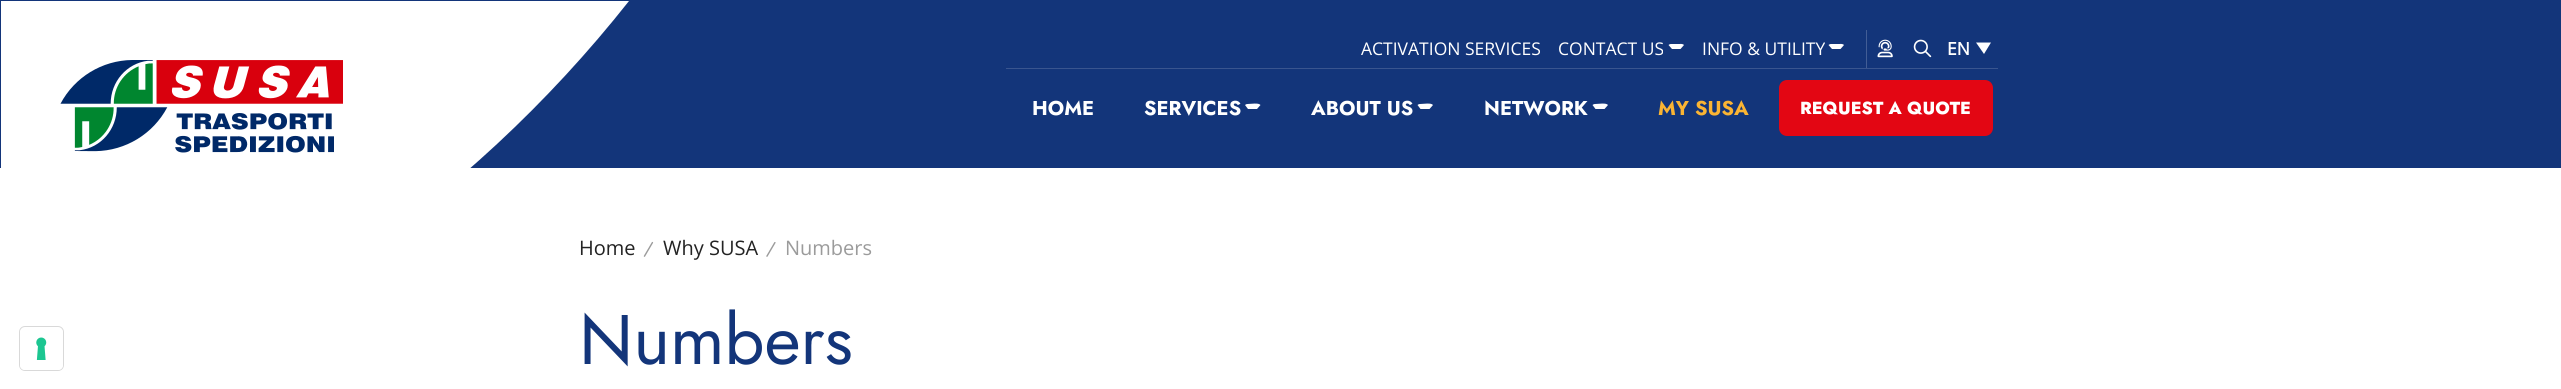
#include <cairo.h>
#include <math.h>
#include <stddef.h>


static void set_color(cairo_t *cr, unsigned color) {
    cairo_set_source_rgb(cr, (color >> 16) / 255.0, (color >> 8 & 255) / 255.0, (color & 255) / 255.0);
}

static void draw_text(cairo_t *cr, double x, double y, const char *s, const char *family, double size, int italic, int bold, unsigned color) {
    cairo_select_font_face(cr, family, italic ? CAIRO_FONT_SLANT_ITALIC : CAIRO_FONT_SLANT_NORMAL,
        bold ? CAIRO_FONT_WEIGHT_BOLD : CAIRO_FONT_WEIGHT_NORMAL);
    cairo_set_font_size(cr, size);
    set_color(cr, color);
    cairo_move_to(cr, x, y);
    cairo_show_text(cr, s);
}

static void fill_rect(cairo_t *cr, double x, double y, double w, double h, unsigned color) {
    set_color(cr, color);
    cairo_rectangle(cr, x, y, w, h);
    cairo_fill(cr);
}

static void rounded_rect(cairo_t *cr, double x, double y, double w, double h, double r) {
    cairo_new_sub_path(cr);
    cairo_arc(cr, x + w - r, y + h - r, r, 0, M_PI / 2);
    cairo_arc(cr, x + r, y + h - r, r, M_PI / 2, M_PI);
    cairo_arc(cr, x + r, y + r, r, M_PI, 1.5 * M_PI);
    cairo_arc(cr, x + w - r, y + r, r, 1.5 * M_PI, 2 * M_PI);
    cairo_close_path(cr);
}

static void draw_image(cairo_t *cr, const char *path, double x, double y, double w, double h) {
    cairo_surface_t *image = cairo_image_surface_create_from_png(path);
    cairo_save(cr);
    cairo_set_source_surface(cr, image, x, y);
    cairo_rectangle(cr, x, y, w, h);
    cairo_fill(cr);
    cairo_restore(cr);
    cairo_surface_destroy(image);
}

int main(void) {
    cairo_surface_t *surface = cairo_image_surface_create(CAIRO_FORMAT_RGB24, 2561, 389);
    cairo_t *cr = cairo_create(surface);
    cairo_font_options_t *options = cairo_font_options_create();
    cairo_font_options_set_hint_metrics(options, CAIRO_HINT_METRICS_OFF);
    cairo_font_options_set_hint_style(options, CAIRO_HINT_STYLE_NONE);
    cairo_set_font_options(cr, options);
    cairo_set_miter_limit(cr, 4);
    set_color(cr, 0xFFFFFF);
    cairo_paint(cr);
    fill_rect(cr, 0, 0, 2561, 168, 0x13357A);
    set_color(cr, 0xFFFFFF);
    cairo_new_path(cr);
    cairo_move_to(cr, 1, 1);
    cairo_line_to(cr, 629, 1);
    cairo_curve_to(cr, 467, 206, 247, 355, 1, 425);
    cairo_close_path(cr);
    cairo_fill(cr);
    draw_image(cr, "assets/img1.png", 60, 60, 283, 93);
    draw_text(cr, 1361, 55, "ACTIVATION SERVICES", "Open Sans", 17.5, 0, 0, 0xFFFFFF);
    draw_text(cr, 1558, 55, "CONTACT US", "Open Sans", 17.5, 0, 0, 0xFFFFFF);
    cairo_new_path(cr);
    cairo_move_to(cr, 1671, 44);
    cairo_curve_to(cr, 1670, 44, 1669, 44.5, 1668.5, 45);
    cairo_line_to(cr, 1672, 49);
    cairo_line_to(cr, 1680.5, 49);
    cairo_line_to(cr, 1684, 45);
    cairo_curve_to(cr, 1682.5, 43.5, 1680.5, 44, 1678.5, 44);
    cairo_close_path(cr);
    cairo_fill(cr);
    draw_text(cr, 1702, 55, "INFO & UTILITY", "Open Sans", 17.5, 0, 0, 0xFFFFFF);
    cairo_new_path(cr);
    cairo_move_to(cr, 1831, 44);
    cairo_curve_to(cr, 1830, 44, 1829, 44.5, 1828.5, 45);
    cairo_line_to(cr, 1832, 49);
    cairo_line_to(cr, 1840.5, 49);
    cairo_line_to(cr, 1844, 45);
    cairo_curve_to(cr, 1842.5, 43.5, 1840.5, 44, 1838.5, 44);
    cairo_close_path(cr);
    cairo_fill(cr);
    fill_rect(cr, 1866, 30, 1, 38, 0x425D95);
    draw_image(cr, "assets/img2.png", 1877, 39, 16, 19);
    draw_image(cr, "assets/img3.png", 1913, 39, 19, 19);
    draw_text(cr, 1947, 55, "EN", "Open Sans", 17.5, 0, 1, 0xFFFFFF);
    cairo_new_path(cr);
    cairo_move_to(cr, 1976, 42.5);
    cairo_line_to(cr, 1991, 42.5);
    cairo_line_to(cr, 1984, 54);
    cairo_close_path(cr);
    cairo_fill(cr);
    fill_rect(cr, 1006, 68, 992, 1, 0x39558F);
    draw_text(cr, 1032, 115, "HOME", "Jost", 20, 0, 1, 0xFFFFFF);
    draw_text(cr, 1144, 115, "SERVICES", "Jost", 20, 0, 1, 0xFFFFFF);
    cairo_new_path(cr);
    cairo_move_to(cr, 1247.5, 104);
    cairo_curve_to(cr, 1246.5, 104, 1245.5, 104.5, 1245, 105);
    cairo_line_to(cr, 1248, 109);
    cairo_line_to(cr, 1257, 109);
    cairo_line_to(cr, 1260.5, 105);
    cairo_curve_to(cr, 1258.5, 102.5, 1251, 104, 1247.5, 104);
    cairo_close_path(cr);
    cairo_fill(cr);
    draw_text(cr, 1311, 115, "ABOUT US", "Jost", 20, 0, 1, 0xFFFFFF);
    cairo_new_path(cr);
    cairo_move_to(cr, 1420, 104);
    cairo_curve_to(cr, 1419, 104, 1418, 104.5, 1417.5, 105);
    cairo_line_to(cr, 1420.5, 109);
    cairo_line_to(cr, 1429.5, 109);
    cairo_line_to(cr, 1433, 105);
    cairo_curve_to(cr, 1431, 102.5, 1423.5, 104, 1420, 104);
    cairo_close_path(cr);
    cairo_fill(cr);
    draw_text(cr, 1484, 115, "NETWORK", "Jost", 20, 0, 1, 0xFFFFFF);
    cairo_new_path(cr);
    cairo_move_to(cr, 1595, 104);
    cairo_curve_to(cr, 1594, 104, 1593, 104.5, 1592.5, 105);
    cairo_line_to(cr, 1595.5, 109);
    cairo_line_to(cr, 1604.5, 109);
    cairo_line_to(cr, 1608, 105);
    cairo_curve_to(cr, 1606, 102.5, 1598.5, 104, 1595, 104);
    cairo_close_path(cr);
    cairo_fill(cr);
    draw_text(cr, 1658, 115, "MY SUSA", "Jost", 20, 0, 1, 0xFAB433);
    set_color(cr, 0xE30613);
    rounded_rect(cr, 1780.5, 81.5, 211, 53, 6.5);
    cairo_fill_preserve(cr);
    cairo_set_line_width(cr, 3);
    cairo_stroke(cr);
    draw_text(cr, 1800, 114, "REQUEST A QUOTE", "Jost ExtraBold", 17.5, 0, 0, 0xFFFFFF);
    draw_text(cr, 579, 255, "Home", "Open Sans", 20, 0, 0, 0x232323);
    draw_image(cr, "assets/img4.png", 643, 241, 11, 16);
    draw_text(cr, 663, 255, "Why SUSA", "Open Sans", 20, 0, 0, 0x232323);
    draw_image(cr, "assets/img5.png", 766, 242, 10, 15);
    draw_text(cr, 785, 255, "Numbers", "Open Sans", 20, 0, 0, 0x9B9B9B);
    rounded_rect(cr, 19.5, 326.5, 44, 44, 5.5);
    set_color(cr, 0xD9D9D9);
    cairo_set_line_width(cr, 1);
    cairo_stroke(cr);
    set_color(cr, 0xFFFFFF);
    rounded_rect(cr, 20, 328, 43, 42, 5);
    cairo_fill(cr);
    draw_image(cr, "assets/img6.png", 36, 337, 11, 23);
    draw_text(cr, 579, 364, "Numbers", "Jost", 70, 0, 0, 0x13357A);
    cairo_surface_write_to_png(surface, "output.png");
    cairo_font_options_destroy(options);
    cairo_destroy(cr);
    cairo_surface_destroy(surface);
    return 0;
}
